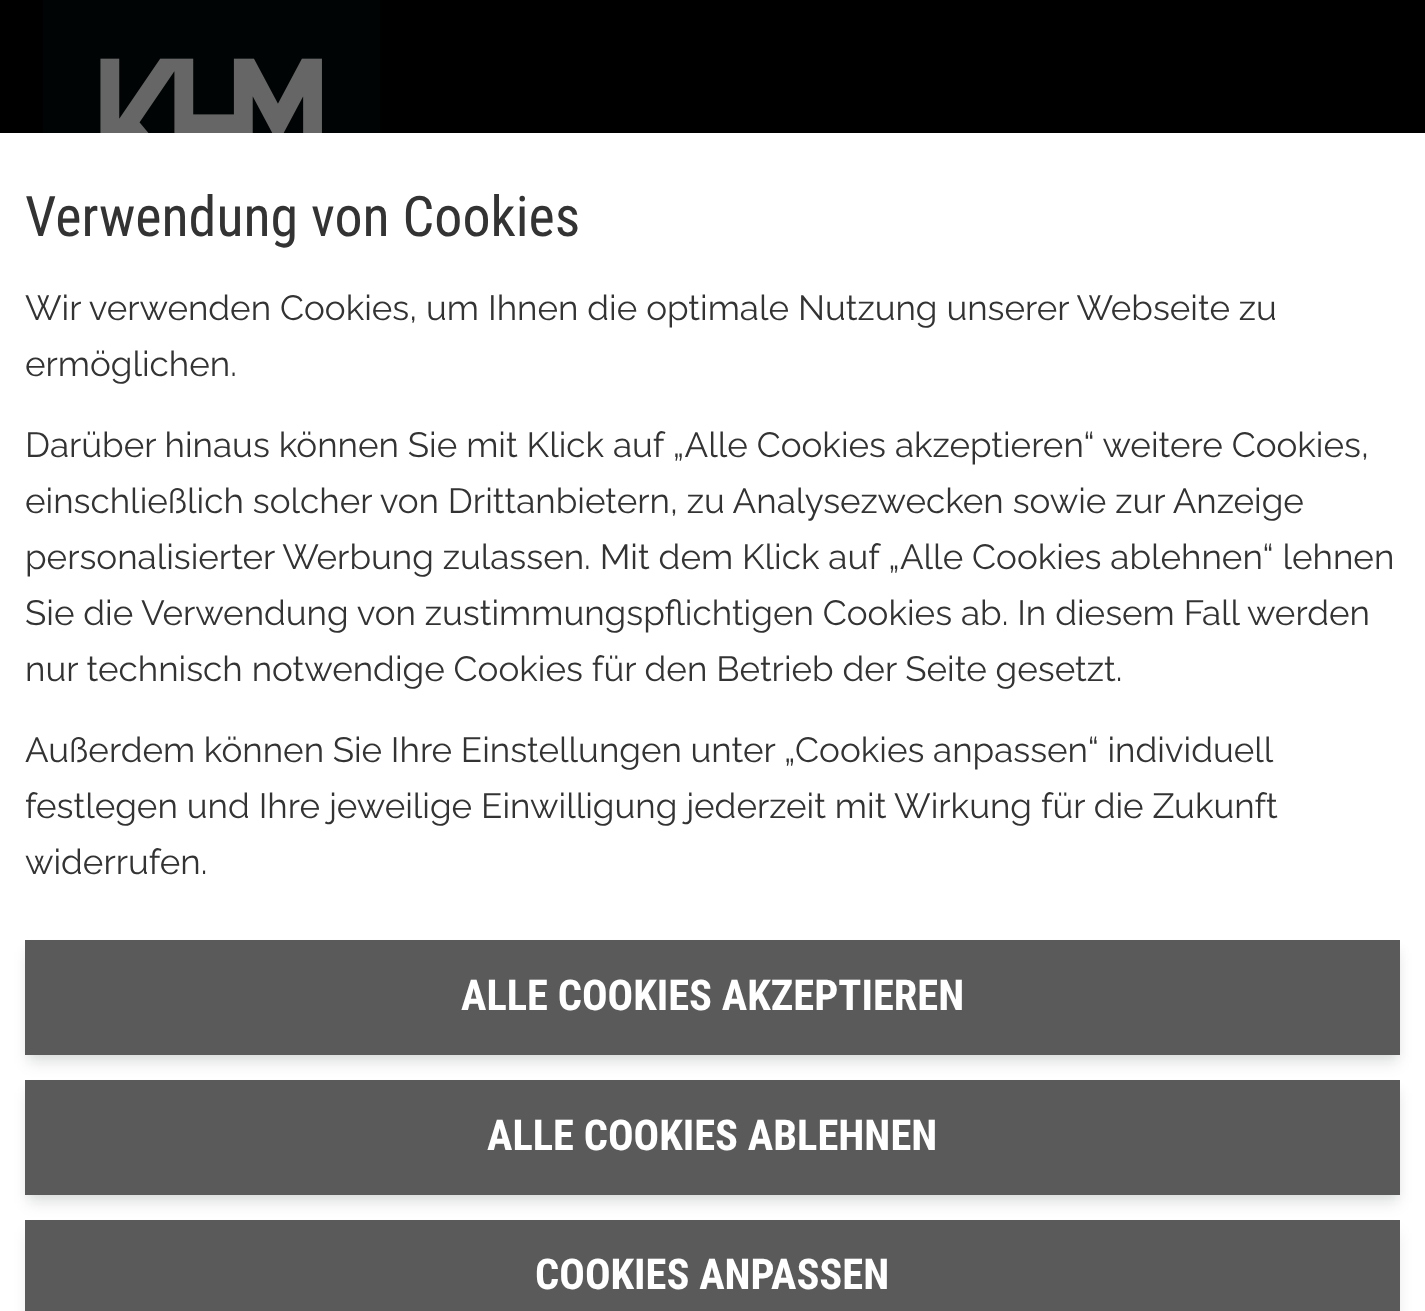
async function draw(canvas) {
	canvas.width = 1425;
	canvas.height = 1311;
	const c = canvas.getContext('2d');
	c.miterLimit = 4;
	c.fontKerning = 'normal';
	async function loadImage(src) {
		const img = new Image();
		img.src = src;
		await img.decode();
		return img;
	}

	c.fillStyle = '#000';
	c.fillRect(0, 0, 1425, 1311);
	c.drawImage(await loadImage('img1.png'), 43, 0, 337, 133);
	c.fillStyle = '#fff';
	c.fillRect(0, 133, 1425, 1178);
	c.font = '56px Roboto Condensed';
	c.fillStyle = '#333';
	c.fillText('Verwendung von Cookies', 25, 236);
	c.font = '35px Raleway';
	for (const [text, x, y] of [
		['Wir verwenden Cookies, um Ihnen die optimale Nutzung unserer Webseite zu', 25, 320],
		['ermöglichen.', 25, 376],
		['Darüber hinaus können Sie mit Klick auf „Alle Cookies akzeptieren“ weitere Cookies,', 25, 457],
		['einschließlich solcher von Drittanbietern, zu Analysezwecken sowie zur Anzeige', 25, 513],
		['personalisierter Werbung zulassen. Mit dem Klick auf „Alle Cookies ablehnen“ lehnen', 25, 569],
		['Sie die Verwendung von zustimmungspflichtigen Cookies ab. In diesem Fall werden', 25, 625],
		['nur technisch notwendige Cookies für den Betrieb der Seite gesetzt.', 25, 681],
	]) {
		c.fillText(text, x, y);
	}
	c.wordSpacing = '-0.25px';
	c.fillText('Außerdem können Sie Ihre Einstellungen unter „Cookies anpassen“ individuell', 25, 762);
	c.wordSpacing = '0px';
	c.fillText('festlegen und Ihre jeweilige Einwilligung jederzeit mit Wirkung für die Zukunft', 25, 818);
	c.fillText('widerrufen.', 25, 874);
	c.fillStyle = '#020a0a0f';
	c.filter = 'blur(5px)';
	c.beginPath();
	c.rect(28, 948, 1370, 110);
	c.fill();
	c.filter = 'none';
	c.fillStyle = '#020a0a1a';
	c.filter = 'blur(7.5px)';
	c.beginPath();
	c.rect(28, 953, 1370, 110);
	c.fill();
	c.filter = 'none';
	c.fillStyle = '#5a5a5a';
	c.fillRect(25, 940, 1375, 115);
	c.font = 'bold 42.5px Roboto Condensed';
	c.fillStyle = '#fff';
	c.fillText('ALLE COOKIES AKZEPTIEREN', 461, 1010);
	c.fillStyle = '#020a0a0f';
	c.filter = 'blur(5px)';
	c.beginPath();
	c.rect(28, 1088, 1370, 110);
	c.fill();
	c.filter = 'none';
	c.fillStyle = '#020a0a1a';
	c.filter = 'blur(7.5px)';
	c.beginPath();
	c.rect(28, 1093, 1370, 110);
	c.fill();
	c.filter = 'none';
	c.fillStyle = '#5a5a5a';
	c.fillRect(25, 1080, 1375, 115);
	c.fillStyle = '#fff';
	c.fillText('ALLE COOKIES ABLEHNEN', 487, 1150);
	c.fillStyle = '#020a0a1a';
	c.filter = 'blur(7.5px)';
	c.beginPath();
	c.rect(28, 1233, 1370, 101);
	c.fill();
	c.filter = 'none';
	c.fillStyle = '#5a5a5a';
	c.fillRect(25, 1220, 1375, 91);
	c.fillStyle = '#fff';
	c.fillText('COOKIES ANPASSEN', 535, 1289);
}

draw(document.querySelector('canvas'));
